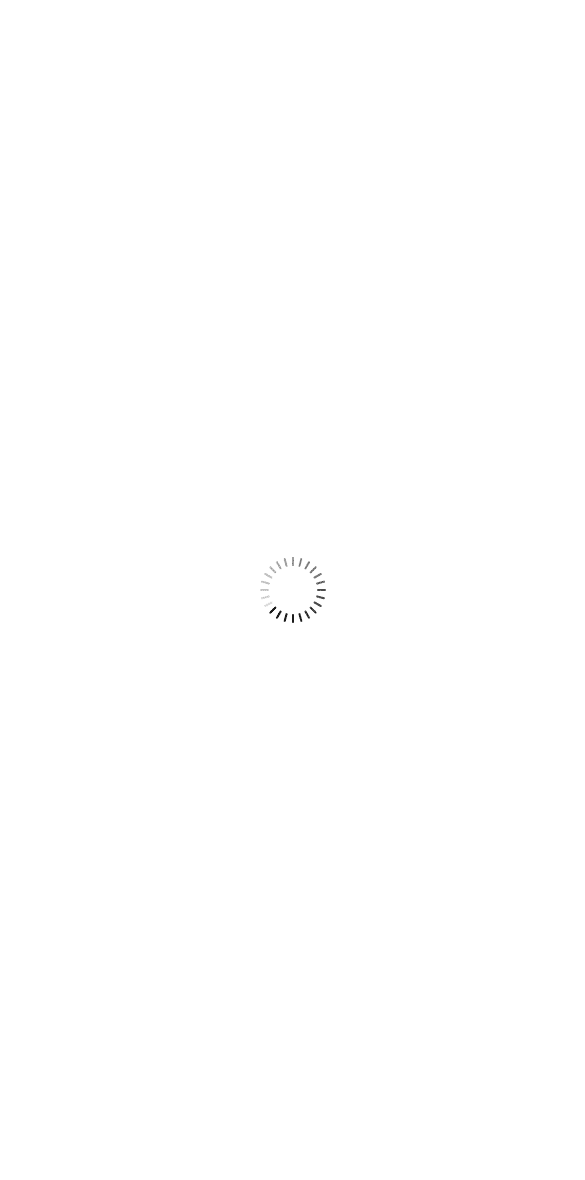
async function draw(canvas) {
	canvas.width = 585;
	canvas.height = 1180;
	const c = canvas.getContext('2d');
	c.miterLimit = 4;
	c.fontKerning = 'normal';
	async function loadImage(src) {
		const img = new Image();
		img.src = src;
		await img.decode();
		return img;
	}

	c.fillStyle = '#fff';
	c.fillRect(0, 0, 585, 1180);
	c.drawImage(await loadImage('img1.png'), 260, 557, 66, 66);
}

draw(document.querySelector('canvas'));
